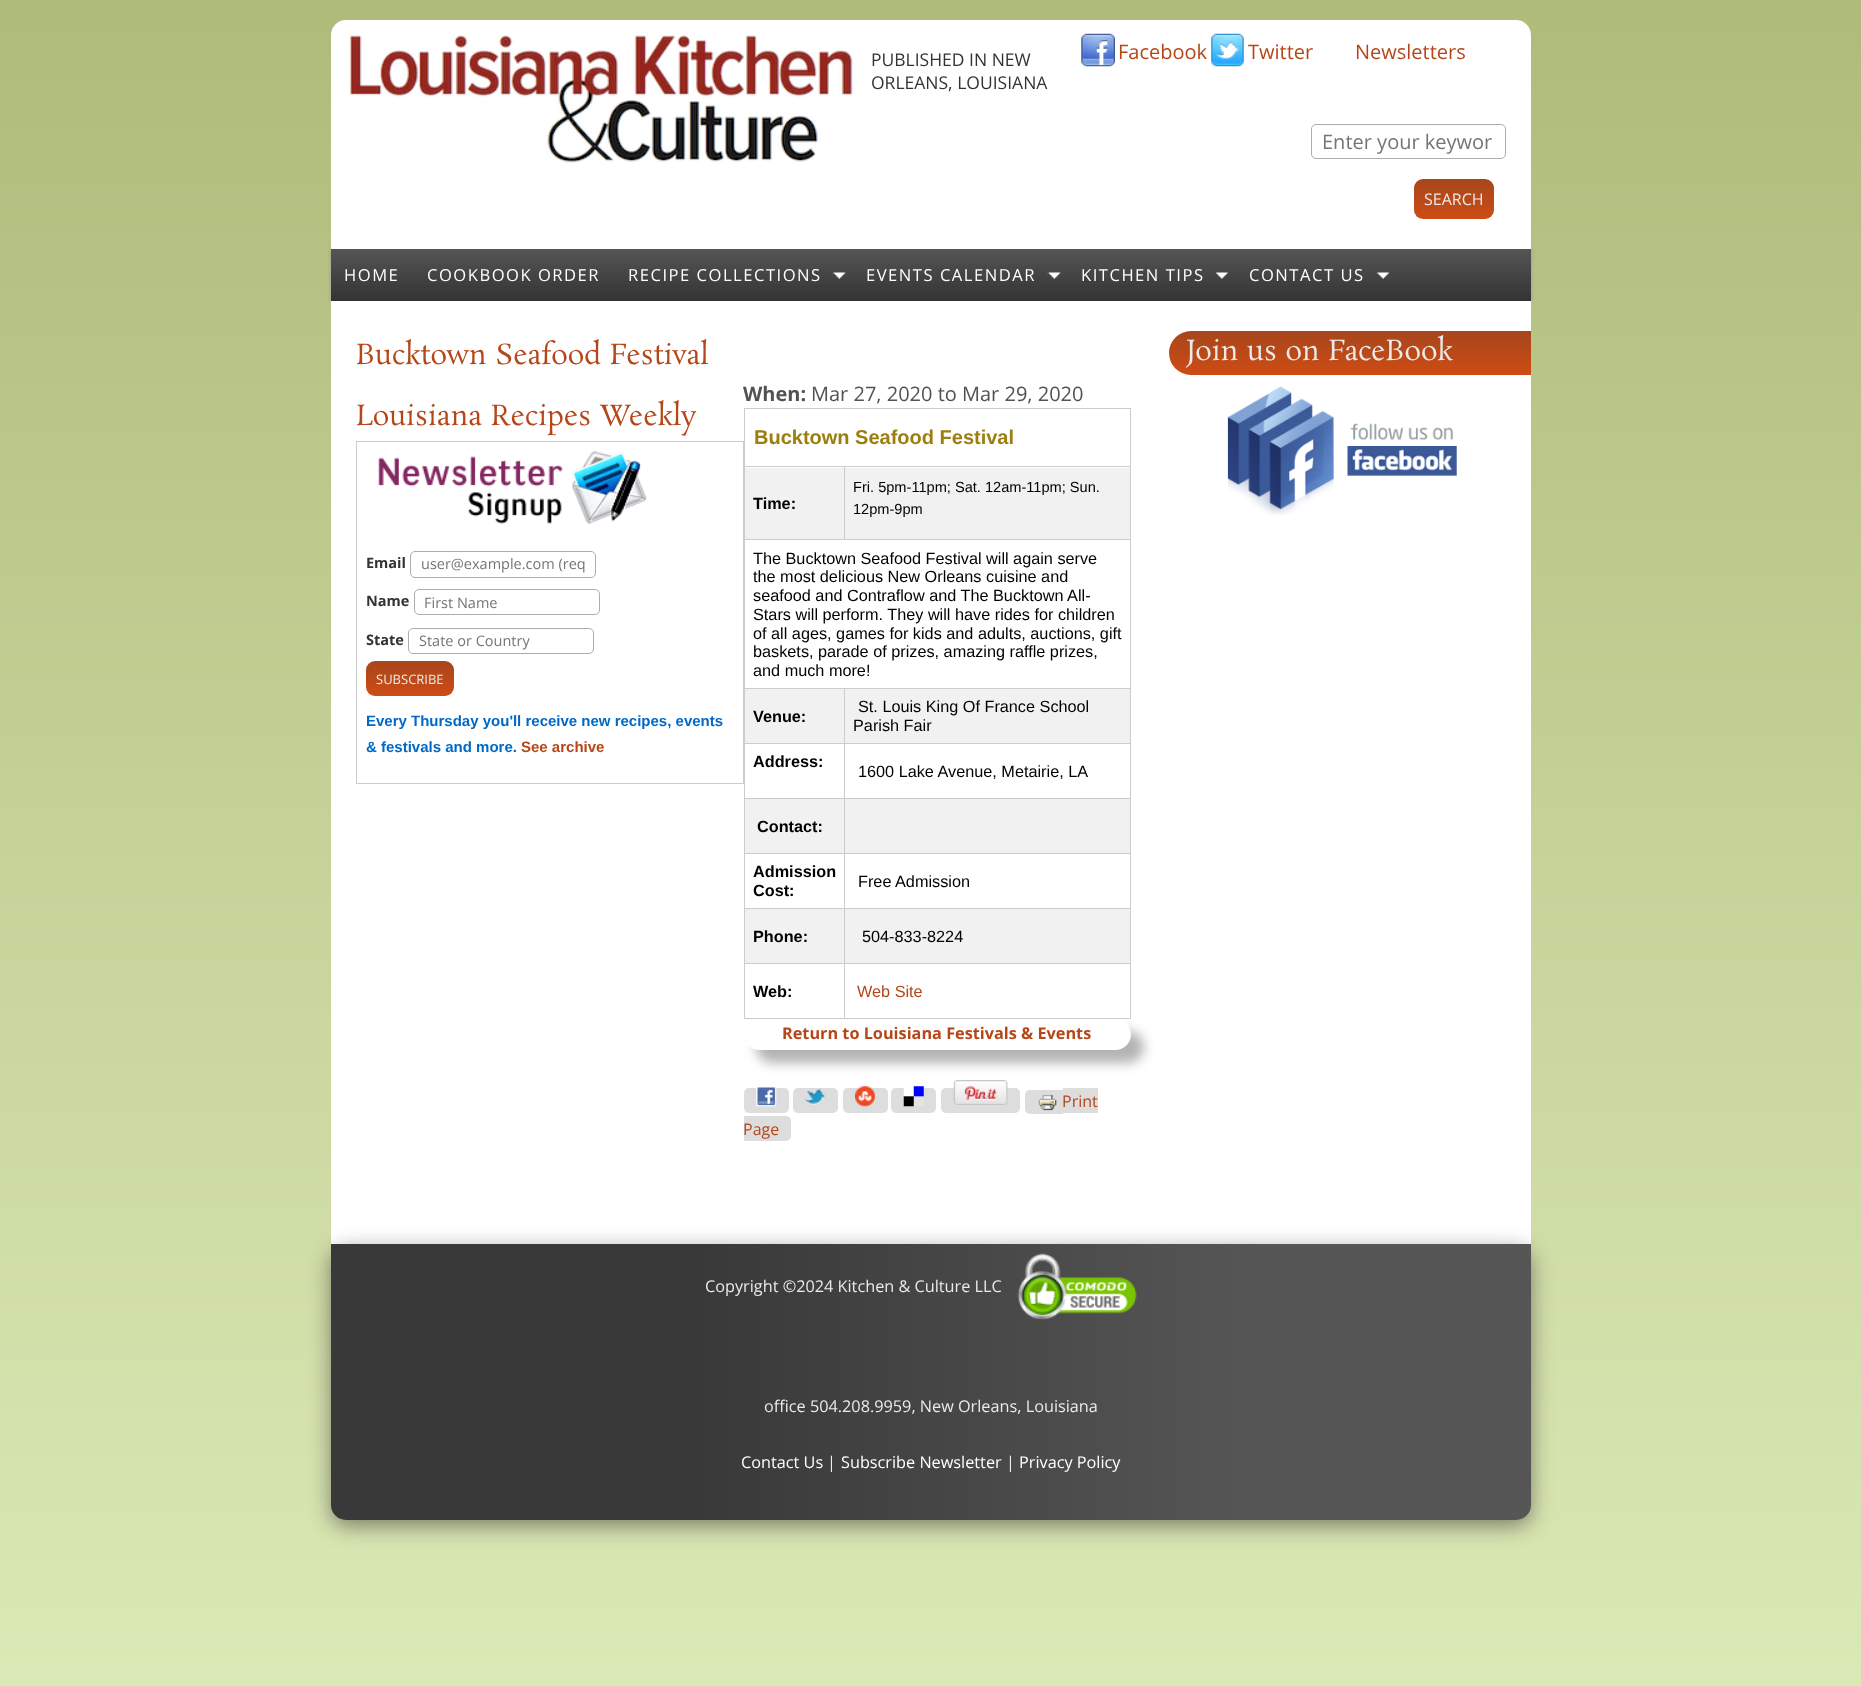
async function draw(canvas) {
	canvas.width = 1861;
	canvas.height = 1686;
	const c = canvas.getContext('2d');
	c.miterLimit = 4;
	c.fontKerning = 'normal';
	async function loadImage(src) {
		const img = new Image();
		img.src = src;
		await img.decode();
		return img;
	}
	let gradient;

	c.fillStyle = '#fff';
	c.fillRect(0, 0, 1861, 1686);
	gradient = c.createLinearGradient(931, 0, 931, 1686);
	gradient.addColorStop(0, '#afbb7a');
	gradient.addColorStop(1, '#dbe9b6');
	c.fillStyle = gradient;
	c.fillRect(0, 0, 1861, 1686);
	c.fillStyle = '#999';
	c.filter = 'blur(2px)';
	c.beginPath();
	c.rect(331, 249, 1200, 52);
	c.fill();
	c.filter = 'none';
	c.fillStyle = '#fff';
	c.beginPath();
	c.roundRect(331, 20, 1200, 229, [15, 15, 0, 0]);
	c.fill();
	c.drawImage(await loadImage('img1.png'), 349, 35, 504, 128);
	c.font = '17.5px Open Sans';
	c.fillStyle = '#333';
	c.fillText('PUBLISHED IN NEW', 871, 66);
	c.fillText('ORLEANS, LOUISIANA', 871, 89);
	c.drawImage(await loadImage('img2.png'), 1081, 33, 34, 34);
	c.font = '20px Open Sans';
	c.fillStyle = '#b54617';
	c.fillText('Facebook', 1118, 59);
	c.drawImage(await loadImage('img3.png'), 1211, 33, 33, 34);
	c.fillText('Twitter', 1248, 59);
	c.fillText('Newsletters', 1355, 59);
	c.beginPath();
	c.roundRect(1311.5, 124.5, 194, 34, 4.5);
	c.strokeStyle = '#acacac';
	c.stroke();
	c.fillStyle = '#757575';
	c.fillText('Enter your keywor', 1322, 149);
	gradient = c.createLinearGradient(1454, 219, 1454, 179);
	gradient.addColorStop(0, '#ce4c14');
	gradient.addColorStop(1, '#a7461c');
	c.fillStyle = gradient;
	c.beginPath();
	c.roundRect(1414, 179, 80, 40, 9);
	c.fill();
	c.font = '16px Open Sans';
	c.fillStyle = '#eaeaea';
	c.fillText('SEARCH', 1424, 205);
	gradient = c.createLinearGradient(931, 249, 931, 354);
	gradient.addColorStop(0, '#555');
	gradient.addColorStop(0.5, '#333');
	gradient.addColorStop(0.5, '#555');
	gradient.addColorStop(1, '#333');
	c.fillStyle = gradient;
	c.fillRect(331, 249, 1200, 52);
	c.letterSpacing = '1.5px';
	c.font = '16.6px Open Sans';
	c.fillStyle = '#fff';
	for (const [text, x, y] of [
		['HOME', 344, 281],
		['COOKBOOK ORDER', 427, 281],
		['RECIPE COLLECTIONS', 628, 281],
	]) {
		c.fillText(text, x, y);
	}
	c.drawImage(await loadImage('img4.png'), 832, 272, 15, 7);
	c.fillText('EVENTS CALENDAR', 866, 281);
	c.drawImage(await loadImage('img4.png'), 1047, 272, 15, 7);
	c.fillText('KITCHEN TIPS', 1081, 281);
	c.drawImage(await loadImage('img5.png'), 1215, 272, 14, 7);
	c.fillText('CONTACT US', 1249, 281);
	c.drawImage(await loadImage('img6.png'), 1376, 272, 14, 7);
	c.fillRect(331, 301, 1200, 943);
	c.letterSpacing = '0px';
	c.font = '28px Rosarivo';
	c.fillStyle = '#b54617';
	c.fillText('Bucktown Seafood Festival', 356, 364);
	c.fillText('Louisiana Recipes Weekly', 356, 425);
	for (const [x, y, w, h, color] of [
		[356, 441, 388, 1, '#ccc'],
		[743, 441, 1, 343, '#ccc'],
		[356, 783, 388, 1, '#ccc'],
		[356, 441, 1, 343, '#ccc'],
	]) {
		c.fillStyle = color;
		c.fillRect(x, y, w, h);
	}
	c.drawImage(await loadImage('img7.png'), 378, 451, 269, 73);
	c.font = 'bold 14.5px Open Sans';
	c.fillStyle = '#333';
	c.fillText('Email', 366, 568);
	c.beginPath();
	c.roundRect(410.5, 551.5, 185, 26, 4.5);
	c.stroke();
	c.save();
	c.beginPath();
	c.rect(421, 555, 164, 19);
	c.clip();
	c.font = '14.5px Open Sans';
	c.fillStyle = '#757575';
	c.fillText('user@example.com (req', 421, 569);
	c.restore();
	c.fillText('Name', 366, 606);
	c.beginPath();
	c.roundRect(414.5, 589.5, 185, 25, 4.5);
	c.stroke();
	c.font = '14.5px Open Sans';
	c.fillStyle = '#757575';
	c.fillText('First Name', 424, 608);
	c.font = 'bold 14.5px Open Sans';
	c.fillStyle = '#333';
	c.fillText('State', 366, 645);
	c.beginPath();
	c.roundRect(408.5, 628.5, 185, 25, 4.5);
	c.stroke();
	c.font = '14.5px Open Sans';
	c.fillStyle = '#757575';
	c.fillText('State or Country', 419, 646);
	gradient = c.createLinearGradient(410, 696, 410, 661);
	gradient.addColorStop(0, '#ce4c14');
	gradient.addColorStop(1, '#a7461c');
	c.fillStyle = gradient;
	c.beginPath();
	c.roundRect(366, 661, 88, 35, 9);
	c.fill();
	c.font = '13px Open Sans';
	c.fillStyle = '#eaeaea';
	c.fillText('SUBSCRIBE', 376, 684);
	c.font = 'bold 15px Liberation Sans';
	c.fillStyle = '#0069c8';
	c.fillText('Every Thursday you\'ll receive new recipes, events', 366, 726);
	c.fillText('& festivals and more.', 366, 752);
	c.fillStyle = '#b54617';
	c.fillText('See archive', 521, 752);
	c.font = 'bold 20px Open Sans';
	c.fillStyle = '#525252';
	c.fillText('When:', 743, 401);
	c.font = '20px Open Sans';
	c.fillText('Mar 27, 2020 to Mar 29, 2020', 811, 401);
	c.fillStyle = '#ccc';
	c.fillRect(744, 408, 387, 1);
	c.font = 'bold 20px Liberation Sans';
	c.fillStyle = '#9c7e0e';
	c.fillText('Bucktown Seafood Festival', 754, 444);
	for (const [x, y, w, h, color] of [
		[745, 468, 99, 71, '#f1f1f1'],
		[844, 466, 287, 1, '#ccc'],
		[744, 539, 387, 1, '#ccc'],
		[844, 466, 1, 74, '#ccc'],
		[744, 466, 101, 1, '#ccc'],
		[844, 688, 287, 1, '#ccc'],
		[844, 743, 287, 1, '#ccc'],
		[844, 798, 287, 1, '#ccc'],
		[844, 853, 287, 1, '#ccc'],
		[844, 908, 287, 1, '#ccc'],
		[844, 963, 287, 1, '#ccc'],
		[1130, 963, 1, 56, '#ccc'],
		[844, 1018, 287, 1, '#ccc'],
		[844, 963, 1, 56, '#ccc'],
		[744, 963, 101, 1, '#ccc'],
		[844, 908, 1, 56, '#ccc'],
		[744, 908, 101, 1, '#ccc'],
		[844, 853, 1, 56, '#ccc'],
		[744, 853, 101, 1, '#ccc'],
		[844, 798, 1, 56, '#ccc'],
		[744, 798, 101, 1, '#ccc'],
		[844, 743, 1, 56, '#ccc'],
		[744, 743, 101, 1, '#ccc'],
		[844, 688, 1, 56, '#ccc'],
		[744, 688, 101, 1, '#ccc'],
		[744, 1018, 101, 1, '#ccc'],
		[744, 963, 1, 56, '#ccc'],
		[744, 908, 1, 56, '#ccc'],
		[744, 853, 1, 56, '#ccc'],
		[744, 798, 1, 56, '#ccc'],
		[744, 743, 1, 56, '#ccc'],
		[744, 688, 1, 56, '#ccc'],
		[744, 539, 1, 150, '#ccc'],
		[744, 408, 1, 132, '#ccc'],
	]) {
		c.fillStyle = color;
		c.fillRect(x, y, w, h);
	}
	c.font = 'bold 16.25px Liberation Sans';
	c.fillStyle = '#000';
	c.fillText('Time:', 753, 509);
	for (const [x, y, w, h, color] of [
		[845, 468, 285, 71, '#f1f1f1'],
		[1130, 908, 1, 56, '#ccc'],
		[1130, 853, 1, 56, '#ccc'],
		[1130, 798, 1, 56, '#ccc'],
		[1130, 743, 1, 56, '#ccc'],
		[1130, 688, 1, 56, '#ccc'],
		[1130, 539, 1, 150, '#ccc'],
		[1130, 408, 1, 132, '#ccc'],
	]) {
		c.fillStyle = color;
		c.fillRect(x, y, w, h);
	}
	c.font = '14.6px Liberation Sans';
	c.fillStyle = '#000';
	c.fillText('Fri. 5pm-11pm; Sat. 12am-11pm; Sun.', 853, 492);
	c.fillText('12pm-9pm', 853, 514);
	c.font = '16.25px Liberation Sans';
	for (const [text, x, y] of [
		['The Bucktown Seafood Festival will again serve', 753, 564],
		['the most delicious New Orleans cuisine and', 753, 582],
		['seafood and Contraflow and The Bucktown All-', 753, 601],
		['Stars will perform. They will have rides for children', 753, 620],
		['of all ages, games for kids and adults, auctions, gift', 753, 639],
		['baskets, parade of prizes, amazing raffle prizes,', 753, 657],
		['and much more!', 753, 676],
	]) {
		c.fillText(text, x, y);
	}
	c.fillStyle = '#f1f1f1';
	c.fillRect(745, 689, 99, 54);
	c.font = 'bold 16.25px Liberation Sans';
	c.fillStyle = '#000';
	c.fillText('Venue:', 753, 722);
	c.fillStyle = '#f1f1f1';
	c.fillRect(845, 689, 285, 54);
	c.font = '16.25px Liberation Sans';
	c.fillStyle = '#000';
	c.fillText('St. Louis King Of France School', 858, 712);
	c.fillText('Parish Fair', 853, 731);
	c.font = 'bold 16.25px Liberation Sans';
	c.fillText('Address:', 753, 767);
	c.font = '16.25px Liberation Sans';
	c.fillText('1600 Lake Avenue, Metairie, LA', 858, 777);
	c.fillStyle = '#f1f1f1';
	c.fillRect(745, 799, 99, 54);
	c.font = 'bold 16.25px Liberation Sans';
	c.fillStyle = '#000';
	c.fillText('Contact:', 757, 832);
	c.fillStyle = '#f1f1f1';
	c.fillRect(845, 799, 285, 54);
	c.fillStyle = '#000';
	c.fillText('Admission', 753, 877);
	c.fillText('Cost:', 753, 896);
	c.font = '16.25px Liberation Sans';
	c.fillText('Free Admission', 858, 887);
	c.fillStyle = '#f1f1f1';
	c.fillRect(745, 909, 99, 54);
	c.font = 'bold 16.25px Liberation Sans';
	c.fillStyle = '#000';
	c.fillText('Phone:', 753, 942);
	c.fillStyle = '#f1f1f1';
	c.fillRect(845, 909, 285, 54);
	c.font = '16.25px Liberation Sans';
	c.fillStyle = '#000';
	c.fillText('504-833-8224', 862, 942);
	c.font = 'bold 16.25px Liberation Sans';
	c.fillText('Web:', 753, 997);
	c.font = '16.25px Liberation Sans';
	c.fillStyle = '#b54617';
	c.fillText('Web Site', 857, 997);
	c.save();
	c.beginPath();
	c.moveTo(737, 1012);
	c.lineTo(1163, 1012);
	c.lineTo(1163, 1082);
	c.lineTo(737, 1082);
	c.closePath();
	c.moveTo(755, 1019);
	c.lineTo(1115.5, 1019);
	c.bezierCurveTo(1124, 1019, 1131, 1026, 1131, 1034.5);
	c.bezierCurveTo(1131, 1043, 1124, 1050, 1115.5, 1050);
	c.lineTo(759.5, 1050);
	c.bezierCurveTo(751, 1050, 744, 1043, 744, 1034.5);
	c.lineTo(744, 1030);
	c.bezierCurveTo(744, 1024, 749, 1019, 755, 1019);
	c.closePath();
	c.clip('evenodd');
	c.fillStyle = '#b3b3b3';
	c.filter = 'blur(6px)';
	c.beginPath();
	c.roundRect(756, 1031, 388, 32, 16);
	c.fill();
	c.filter = 'none';
	c.restore();
	c.font = 'bold 16.25px Open Sans';
	c.fillText('Return to Louisiana Festivals & Events', 782, 1039);
	c.fillStyle = '#ddd';
	c.beginPath();
	c.roundRect(744, 1088, 45, 25, 5);
	c.fill();
	c.drawImage(await loadImage('img8.png'), 756, 1087, 21, 20);
	c.beginPath();
	c.roundRect(793, 1088, 45, 25, 5);
	c.fill();
	c.drawImage(await loadImage('img9.png'), 805, 1088, 20, 17);
	c.beginPath();
	c.roundRect(843, 1088, 45, 25, 5);
	c.fill();
	c.drawImage(await loadImage('img10.png'), 855, 1086, 20, 21);
	c.beginPath();
	c.roundRect(891, 1088, 45, 25, 5);
	c.fill();
	c.drawImage(await loadImage('img11.png'), 903, 1086, 21, 21);
	c.beginPath();
	c.roundRect(941, 1088, 79, 25, 5);
	c.fill();
	c.drawImage(await loadImage('img12.png'), 953, 1080, 55, 25);
	c.beginPath();
	c.roundRect(1025, 1090, 38, 24, [5, 0, 0, 5]);
	c.fill();
	c.drawImage(await loadImage('img13.png'), 1038, 1094, 19, 17);
	c.fillRect(1063, 1088, 35, 25);
	c.font = '16px Open Sans';
	c.fillStyle = '#b54617';
	c.fillText('Print', 1062, 1107);
	c.fillStyle = '#ddd';
	c.beginPath();
	c.roundRect(744, 1116, 47, 25, [0, 5, 5, 0]);
	c.fill();
	c.fillStyle = '#b54617';
	c.fillText('Page', 743, 1135);
	gradient = c.createLinearGradient(1350, 375, 1350, 331);
	gradient.addColorStop(0, '#ce4c14');
	gradient.addColorStop(1, '#a7461c');
	c.fillStyle = gradient;
	c.beginPath();
	c.roundRect(1169, 331, 362, 44, [22, 0, 0, 22]);
	c.fill();
	c.font = '28px Rosarivo';
	c.fillStyle = '#eaeaea';
	c.fillText('Join us on FaceBook', 1186, 360);
	c.drawImage(await loadImage('img14.png'), 1227, 386, 230, 129);
	c.fillStyle = '#3232328f';
	c.filter = 'blur(10.5px)';
	c.beginPath();
	c.roundRect(331, 1250, 1200, 276, 15);
	c.fill();
	c.filter = 'none';
	gradient = c.createLinearGradient(331, 1382, 1531, 1382);
	gradient.addColorStop(0.31, '#393939');
	gradient.addColorStop(0.77, '#565656');
	c.fillStyle = gradient;
	c.beginPath();
	c.roundRect(331, 1244, 1200, 276, [0, 0, 15, 15]);
	c.fill();
	c.font = '16.25px Open Sans';
	c.fillStyle = '#eaeaea';
	c.fillText('Copyright ©2024 Kitchen & Culture LLC', 705, 1292);
	c.drawImage(await loadImage('img15.png'), 1017, 1253, 120, 67);
	c.fillText('office 504.208.9959, New Orleans, Louisiana', 764, 1412);
	c.fillStyle = '#fff';
	c.fillText('Contact Us', 741, 1468);
	c.fillStyle = '#eaeaea';
	c.fillText('|', 827, 1468);
	c.fillStyle = '#fff';
	c.fillText('Subscribe Newsletter', 841, 1468);
	c.fillStyle = '#eaeaea';
	c.fillText('|', 1006, 1468);
	c.fillStyle = '#fff';
	c.fillText('Privacy Policy', 1019, 1468);
}

draw(document.querySelector('canvas'));
